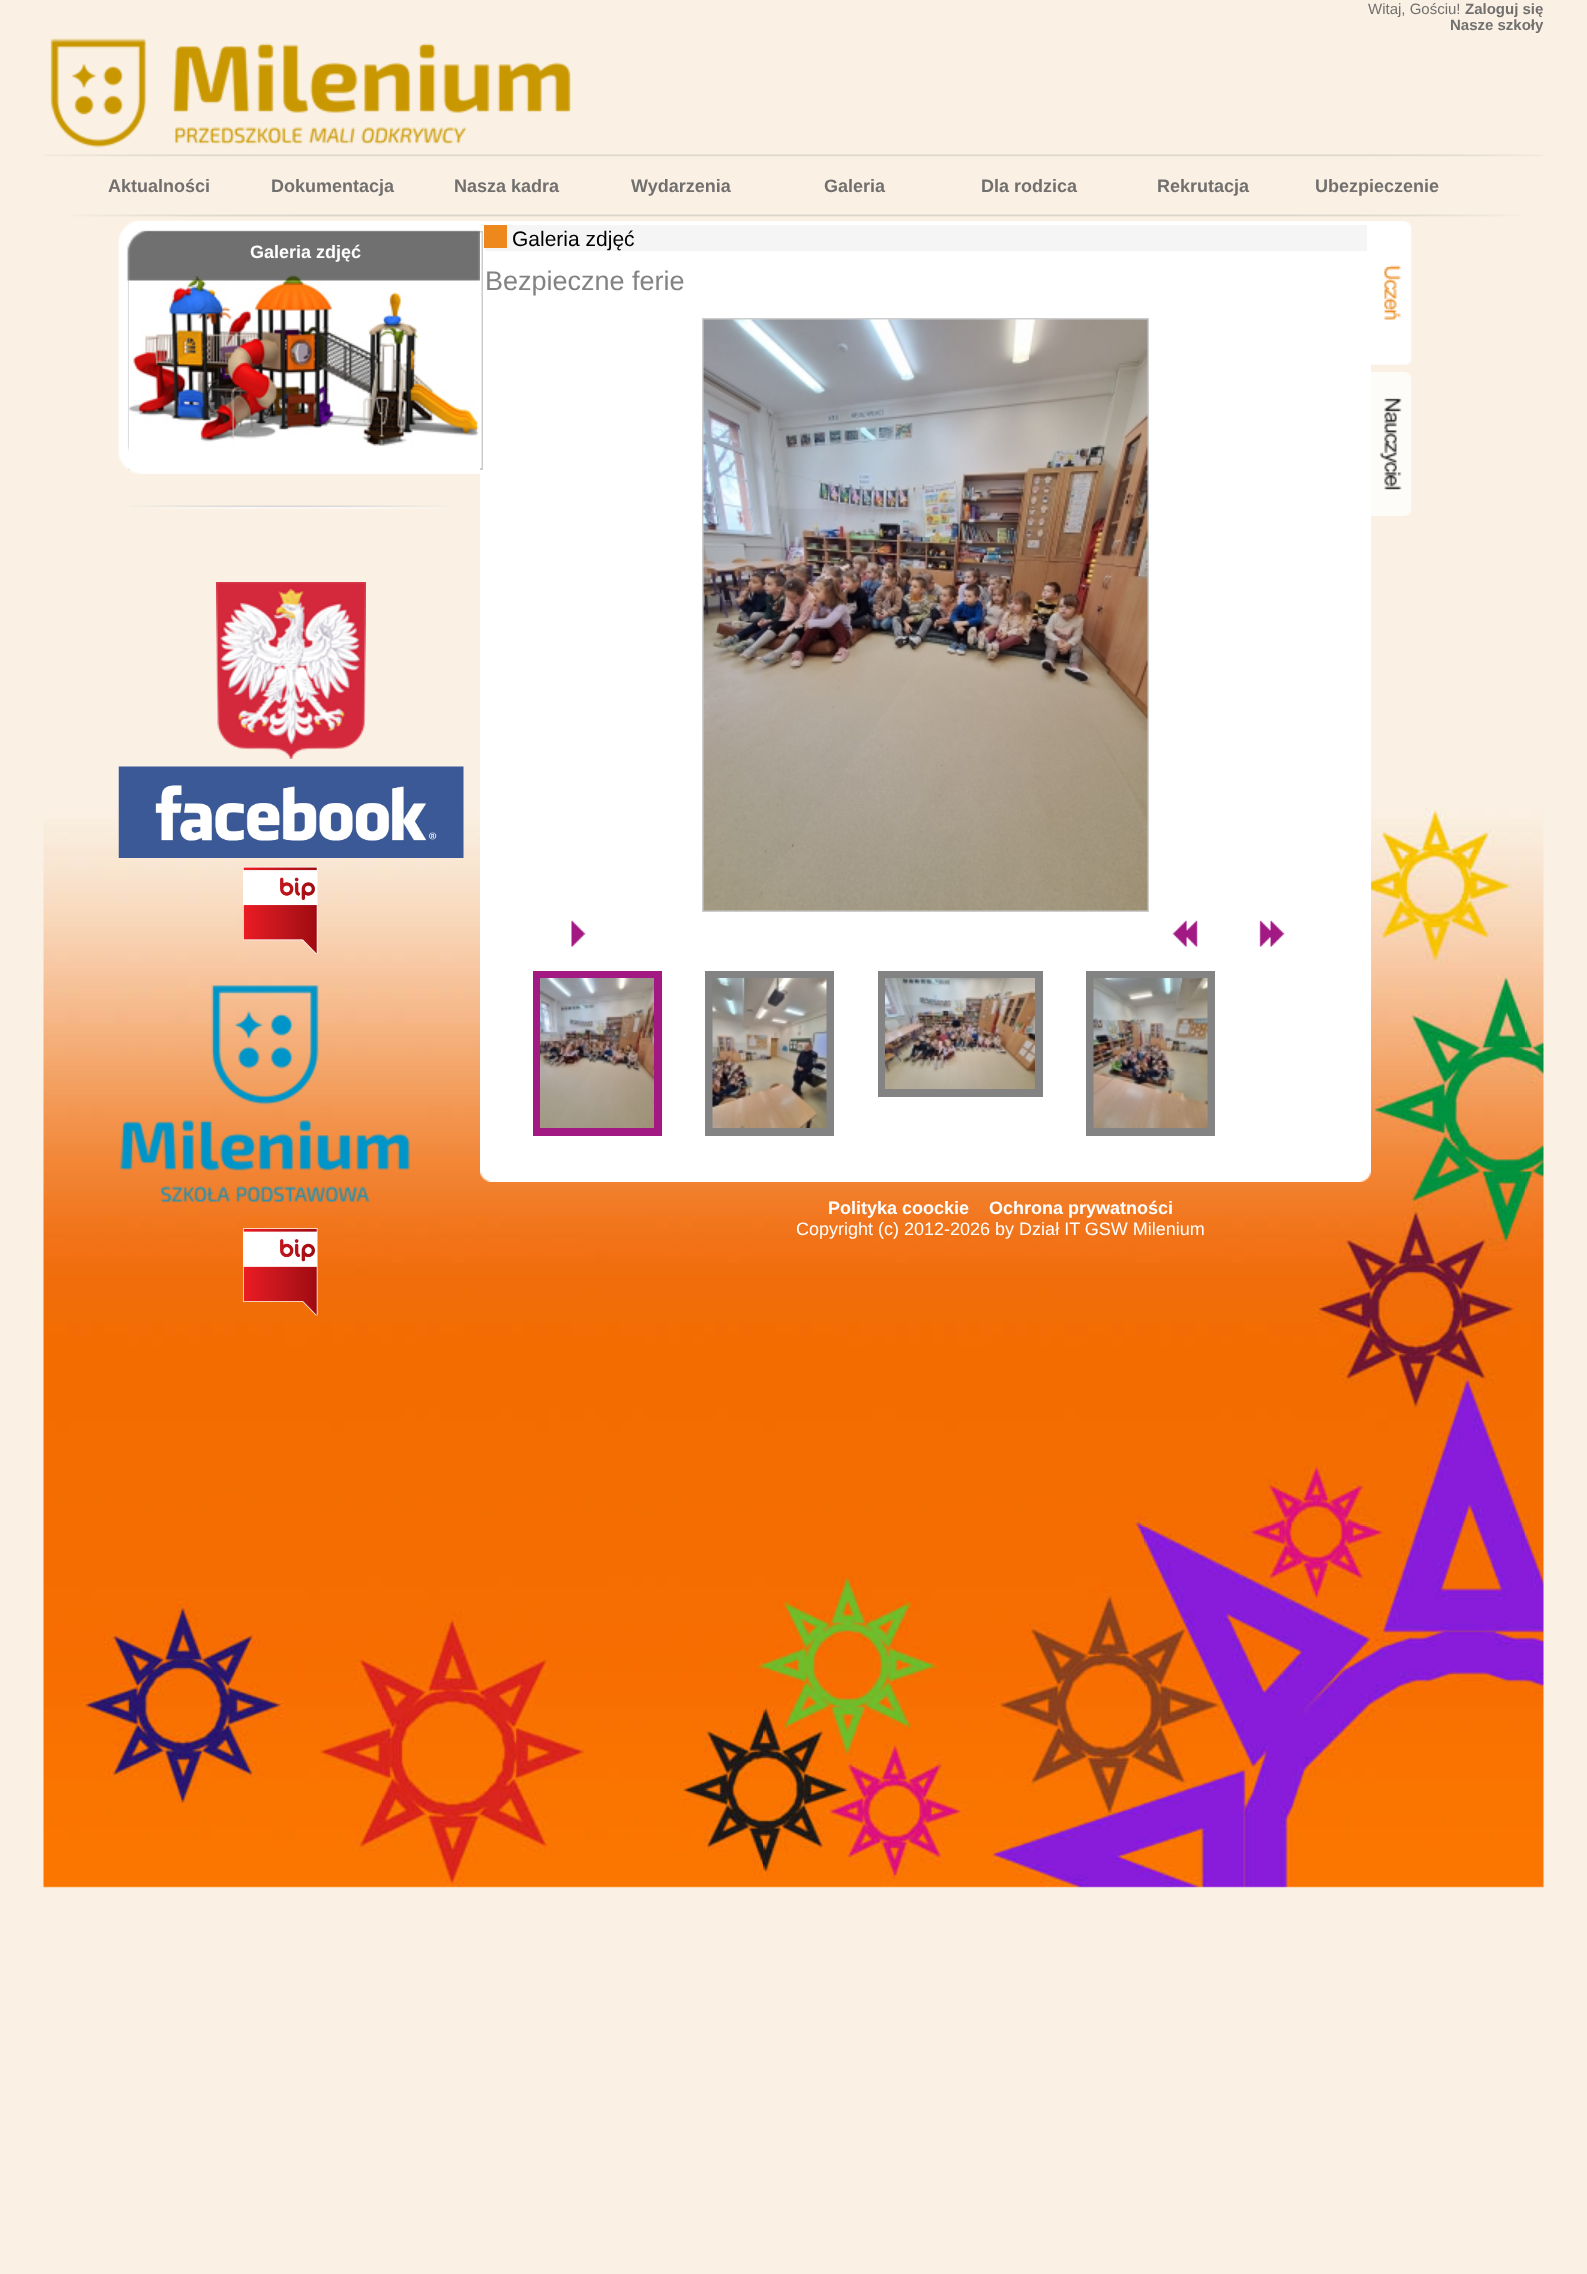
async function draw(canvas) {
	canvas.width = 1587;
	canvas.height = 2274;
	const c = canvas.getContext('2d');
	c.miterLimit = 4;
	c.fontKerning = 'normal';
	async function loadImage(src) {
		const img = new Image();
		img.src = src;
		await img.decode();
		return img;
	}

	c.fillStyle = '#faf1e4';
	c.fillRect(0, 0, 1587, 2274);
	c.drawImage(await loadImage('img1.png'), 43, 807, 1501, 1081);
	c.font = '15px Liberation Sans';
	c.fillStyle = '#72706f';
	c.fillText('Witaj, Gościu!', 1368, 14);
	c.font = 'bold 15px Liberation Sans';
	c.fillText('Zaloguj się', 1465, 14);
	c.fillText('Nasze szkoły', 1450, 30);
	c.drawImage(await loadImage('img2.png'), 50, 38, 521, 110);
	c.drawImage(await loadImage('img3.png'), 44, 154, 1499, 3);
	c.font = 'bold 18px Liberation Sans';
	for (const [text, x, y] of [
		['Aktualności', 108, 192],
		['Dokumentacja', 271, 192],
		['Nasza kadra', 454, 192],
		['Wydarzenia', 631, 192],
		['Galeria', 824, 192],
		['Dla rodzica', 981, 192],
		['Rekrutacja', 1157, 192],
		['Ubezpieczenie', 1315, 192],
	]) {
		c.fillText(text, x, y);
	}
	c.drawImage(await loadImage('img4.png'), 71, 213, 1448, 4);
	c.fillStyle = '#fff';
	c.fillRect(480, 221, 891, 942);
	c.strokeStyle = '#ccc';
	c.lineWidth = 2;
	c.strokeRect(129, 232, 353, 237);
	c.drawImage(await loadImage('img5.png'), 129, 232, 353, 236);
	c.drawImage(await loadImage('img6.png'), 118, 220, 362, 254);
	c.fillText('Galeria zdjęć', 250, 258);
	c.drawImage(await loadImage('img7.png'), 130, 505, 317, 4);
	c.drawImage(await loadImage('img8.png'), 216, 582, 150, 177);
	c.drawImage(await loadImage('img9.png'), 118, 766, 346, 92);
	c.drawImage(await loadImage('img10.png'), 243, 866, 75, 88);
	c.drawImage(await loadImage('img11.png'), 119, 985, 291, 217);
	c.drawImage(await loadImage('img12.png'), 243, 1228, 75, 88);
	c.fillStyle = '#f5f5f5';
	c.fillRect(485, 225, 882, 26);
	c.fillStyle = '#ed881c';
	c.fillRect(484, 225, 23, 23);
	c.font = '21px Liberation Sans';
	c.fillStyle = '#000';
	c.fillText('Galeria zdjęć', 512, 246);
	c.font = '27px Liberation Sans';
	c.fillStyle = '#838383';
	c.fillText('Bezpieczne ferie', 485, 290);
	c.strokeRect(703, 319, 445, 592);
	c.drawImage(await loadImage('img13.png'), 703, 319, 445, 592);
	c.drawImage(await loadImage('img14.png'), 571, 920, 15, 27);
	c.drawImage(await loadImage('img15.png'), 1172, 920, 26, 27);
	c.drawImage(await loadImage('img16.png'), 1259, 920, 26, 27);
	c.fillStyle = '#a21984';
	c.fillRect(533, 971, 129, 165);
	c.drawImage(await loadImage('img17.png'), 540, 978, 114, 150);
	c.fillStyle = '#838383';
	c.fillRect(705, 971, 129, 165);
	c.drawImage(await loadImage('img18.png'), 712, 978, 115, 150);
	c.fillRect(878, 971, 165, 126);
	c.drawImage(await loadImage('img19.png'), 885, 978, 150, 111);
	c.fillRect(1086, 971, 129, 165);
	c.drawImage(await loadImage('img20.png'), 1093, 978, 115, 150);
	c.drawImage(await loadImage('img21.png'), 480, 1163, 891, 19);
	c.font = 'bold 18px Liberation Sans';
	c.fillStyle = '#fff';
	c.fillText('Polityka coockie', 828, 1214);
	c.fillText('Ochrona prywatności', 989, 1214);
	c.font = '18px Liberation Sans';
	c.fillText('Copyright (c) 2012-2026 by Dział IT GSW Milenium', 796, 1235);
	c.drawImage(await loadImage('img22.png'), 1371, 221, 41, 144);
	c.drawImage(await loadImage('img23.png'), 1371, 372, 41, 144);
}

draw(document.querySelector('canvas'));
